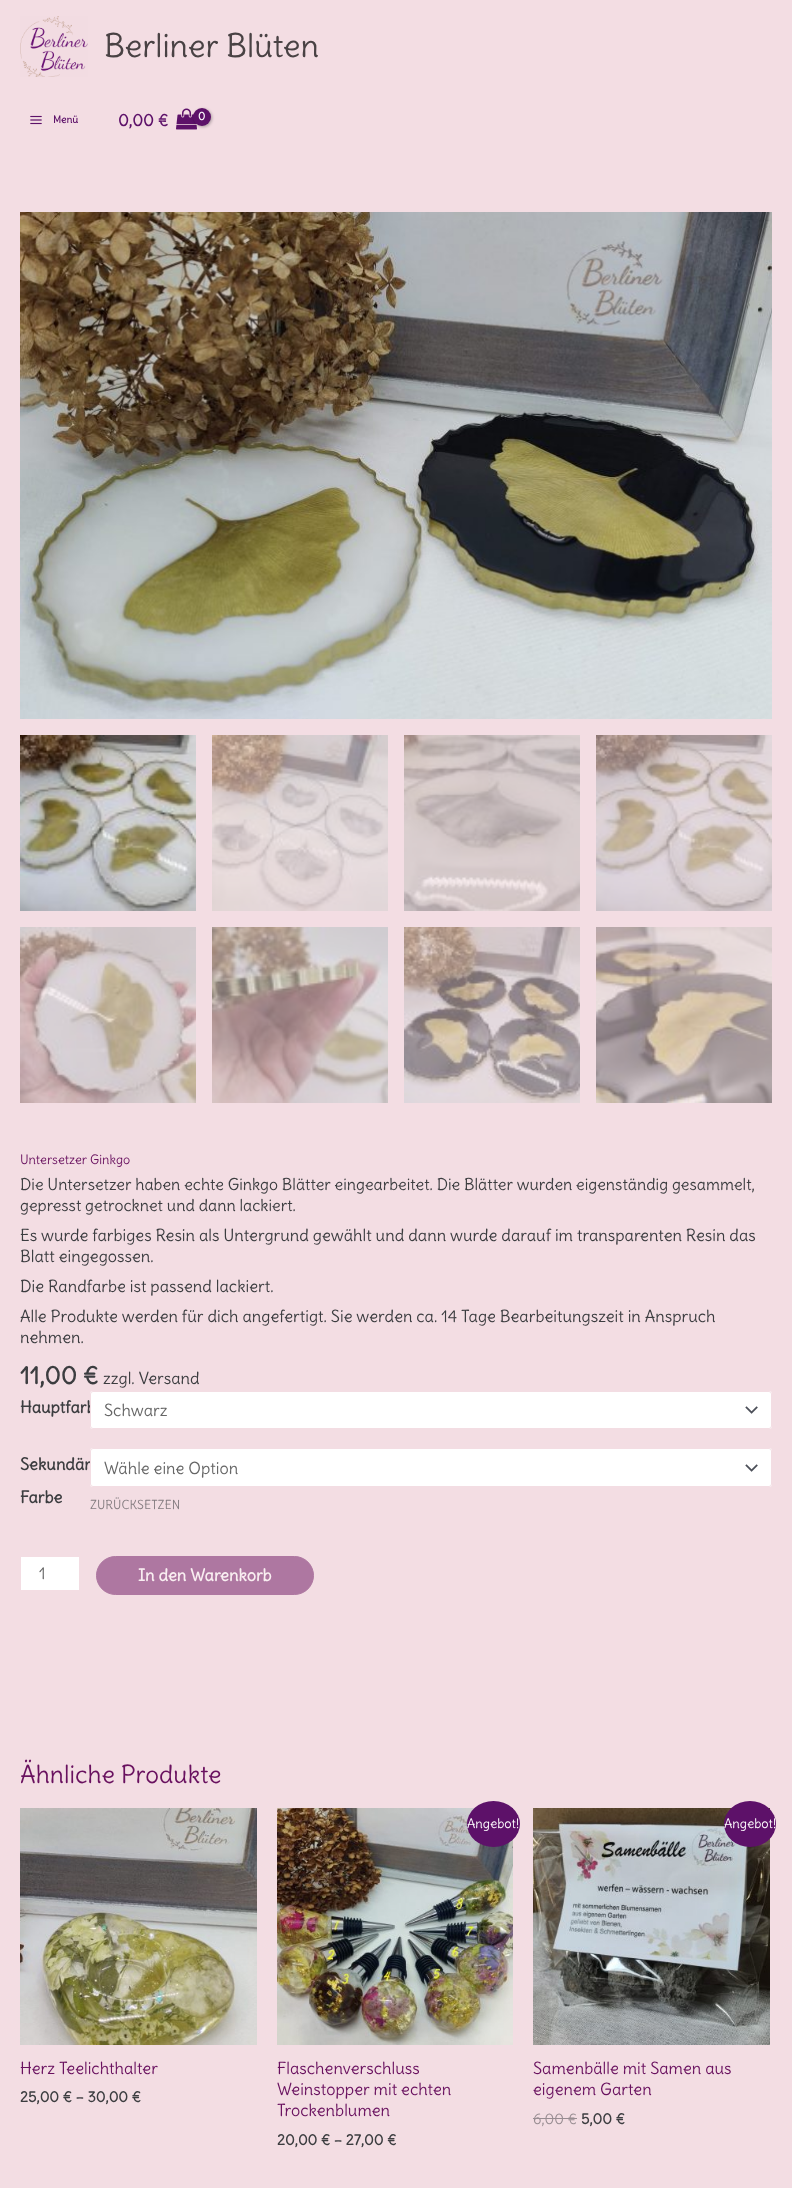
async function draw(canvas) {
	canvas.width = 792;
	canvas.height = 2188;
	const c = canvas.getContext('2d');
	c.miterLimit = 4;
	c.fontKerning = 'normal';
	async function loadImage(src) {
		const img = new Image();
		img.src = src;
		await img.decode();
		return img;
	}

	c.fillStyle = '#f3dde3';
	c.fillRect(0, 0, 792, 2188);
	c.drawImage(await loadImage('img1.png'), 20, 16, 68, 61);
	c.font = '32px Delius';
	c.fillStyle = '#494244';
	c.fillText('Berliner Blüten', 104, 57);
	c.drawImage(await loadImage('img2.png'), 30, 115, 12, 10);
	c.font = 'bold 10px Delius';
	c.fillStyle = '#5d1169';
	c.fillText('Menü', 53, 123);
	c.font = 'bold 16.4px Delius';
	c.fillText('0,00 €', 118, 126);
	c.drawImage(await loadImage('img3.png'), 176, 108, 21, 22);
	c.fillStyle = '#0000004d';
	c.filter = 'blur(1.5px)';
	c.beginPath();
	c.roundRect(194, 109, 18, 18, 9);
	c.fill();
	c.filter = 'none';
	c.fillStyle = '#5d1169';
	c.beginPath();
	c.arc(202, 117, 9, 0, 2 * Math.PI);
	c.fill();
	c.font = 'bold 11px Delius';
	c.fillStyle = '#fff';
	c.fillText('0', 198, 120);
	c.drawImage(await loadImage('img4.png'), 20, 212, 752, 507);
	c.drawImage(await loadImage('img5.png'), 20, 735, 176, 176);
	c.drawImage(await loadImage('img6.png'), 212, 735, 176, 176);
	c.drawImage(await loadImage('img7.png'), 404, 735, 176, 176);
	c.drawImage(await loadImage('img8.png'), 596, 735, 176, 176);
	c.drawImage(await loadImage('img9.png'), 20, 927, 176, 176);
	c.drawImage(await loadImage('img10.png'), 212, 927, 176, 176);
	c.drawImage(await loadImage('img11.png'), 404, 927, 176, 176);
	c.drawImage(await loadImage('img12.png'), 596, 927, 176, 176);
	c.font = '12.75px Delius';
	c.fillStyle = '#69115f';
	c.fillText('Untersetzer Ginkgo', 20, 1164);
	c.font = '16px Delius';
	c.fillStyle = '#3c3d40';
	c.fillText('Die Untersetzer haben echte Ginkgo Blätter eingearbeitet. Die Blätter wurden eigenständig gesammelt,', 20, 1190);
	c.fillText('gepresst getrocknet und dann lackiert.', 20, 1211);
	c.font = '16.4px Delius';
	for (const [text, x, y] of [
		['Es wurde farbiges Resin als Untergrund gewählt und dann wurde darauf im transparenten Resin das', 20, 1241],
		['Blatt eingegossen.', 20, 1262],
		['Die Randfarbe ist passend lackiert.', 20, 1292],
		['Alle Produkte werden für dich angefertigt. Sie werden ca. 14 Tage Bearbeitungszeit in Anspruch', 20, 1322],
		['nehmen.', 20, 1343],
	]) {
		c.fillText(text, x, y);
	}
	c.font = 'bold 24.5px Delius';
	c.fillText('11,00 €', 20, 1384);
	c.font = '16.4px Delius';
	c.fillText('zzgl. Versand', 103, 1384);
	c.font = 'bold 16.4px Delius';
	c.fillText('Hauptfarb', 20, 1413);
	c.fillStyle = '#fff';
	c.beginPath();
	c.roundRect(90, 1391, 682, 38, 3);
	c.fill();
	c.drawImage(await loadImage('img13.png'), 745, 1406, 13, 8);
	c.beginPath();
	c.roundRect(90.5, 1391.5, 681, 37, 2.5);
	c.strokeStyle = '#f3dde3';
	c.stroke();
	c.font = '16.4px Delius';
	c.fillStyle = '#666';
	c.fillText('Schwarz', 104, 1416);
	c.font = 'bold 16.4px Delius';
	c.fillStyle = '#3c3d40';
	c.fillText('Sekundär', 20, 1470);
	c.fillText('Farbe', 20, 1503);
	c.fillStyle = '#fff';
	c.beginPath();
	c.roundRect(90, 1448, 682, 39, 3);
	c.fill();
	c.drawImage(await loadImage('img13.png'), 745, 1464, 13, 8);
	c.beginPath();
	c.roundRect(90.5, 1448.5, 681, 38, 2.5);
	c.stroke();
	c.font = '16.4px Delius';
	c.fillStyle = '#666';
	c.fillText('Wähle eine Option', 104, 1474);
	c.font = '12.25px Delius';
	c.fillStyle = '#857d81';
	c.fillText('ZURÜCKSETZEN', 90, 1509);
	c.fillStyle = '#fff';
	c.fillRect(21, 1557, 58, 33);
	c.font = '16.4px Delius';
	c.fillStyle = '#666';
	c.fillText('1', 39, 1579);
	c.fillStyle = '#ae77a1';
	c.beginPath();
	c.roundRect(96.5, 1556.5, 217, 38, 19);
	c.fill();
	c.strokeStyle = '#ae77a1';
	c.stroke();
	c.font = 'bold 16.4px Delius';
	c.fillStyle = '#f9eef1';
	c.fillText('In den Warenkorb', 138, 1581);
	c.font = '24.5px Delius';
	c.fillStyle = '#69115f';
	c.fillText('Ähnliche Produkte', 20, 1783);
	c.drawImage(await loadImage('img14.png'), 20, 1808, 237, 237);
	c.font = '16.4px Delius';
	c.fillText('Herz Teelichthalter', 20, 2074);
	c.font = 'bold 14.75px Delius';
	c.fillStyle = '#3c3d40';
	c.fillText('25,00 € – 30,00 €', 20, 2102);
	c.drawImage(await loadImage('img15.png'), 277, 1808, 236, 237);
	c.fillStyle = '#5d1169';
	c.beginPath();
	c.ellipse(493.5, 1824, 26.5, 23, 0, 0, 2 * Math.PI);
	c.fill();
	c.font = '13px Delius';
	c.fillStyle = '#fff';
	c.fillText('Angebot!', 467, 1828);
	c.font = '16.4px Delius';
	c.fillStyle = '#69115f';
	for (const [text, x, y] of [
		['Flaschenverschluss', 277, 2074],
		['Weinstopper mit echten', 277, 2095],
		['Trockenblumen', 277, 2116],
	]) {
		c.fillText(text, x, y);
	}
	c.font = 'bold 14.75px Delius';
	c.fillStyle = '#3c3d40';
	c.fillText('20,00 € – 27,00 €', 277, 2145);
	c.drawImage(await loadImage('img16.png'), 533, 1808, 237, 237);
	c.fillStyle = '#5d1169';
	c.beginPath();
	c.ellipse(750, 1824, 26, 23, 0, 0, 2 * Math.PI);
	c.fill();
	c.font = '13px Delius';
	c.fillStyle = '#fff';
	c.fillText('Angebot!', 724, 1828);
	c.font = '16.4px Delius';
	c.fillStyle = '#69115f';
	c.fillText('Samenbälle mit Samen aus', 533, 2074);
	c.fillText('eigenem Garten', 533, 2095);
	c.font = '14.75px Delius';
	c.fillStyle = '#988d92';
	c.fillText('6,00 €', 533, 2124);
	c.fillRect(533, 2118, 44, 1);
	c.font = 'bold 14.75px Delius';
	c.fillStyle = '#3c3d40';
	c.fillText('5,00 €', 581, 2124);
}

draw(document.querySelector('canvas'));
